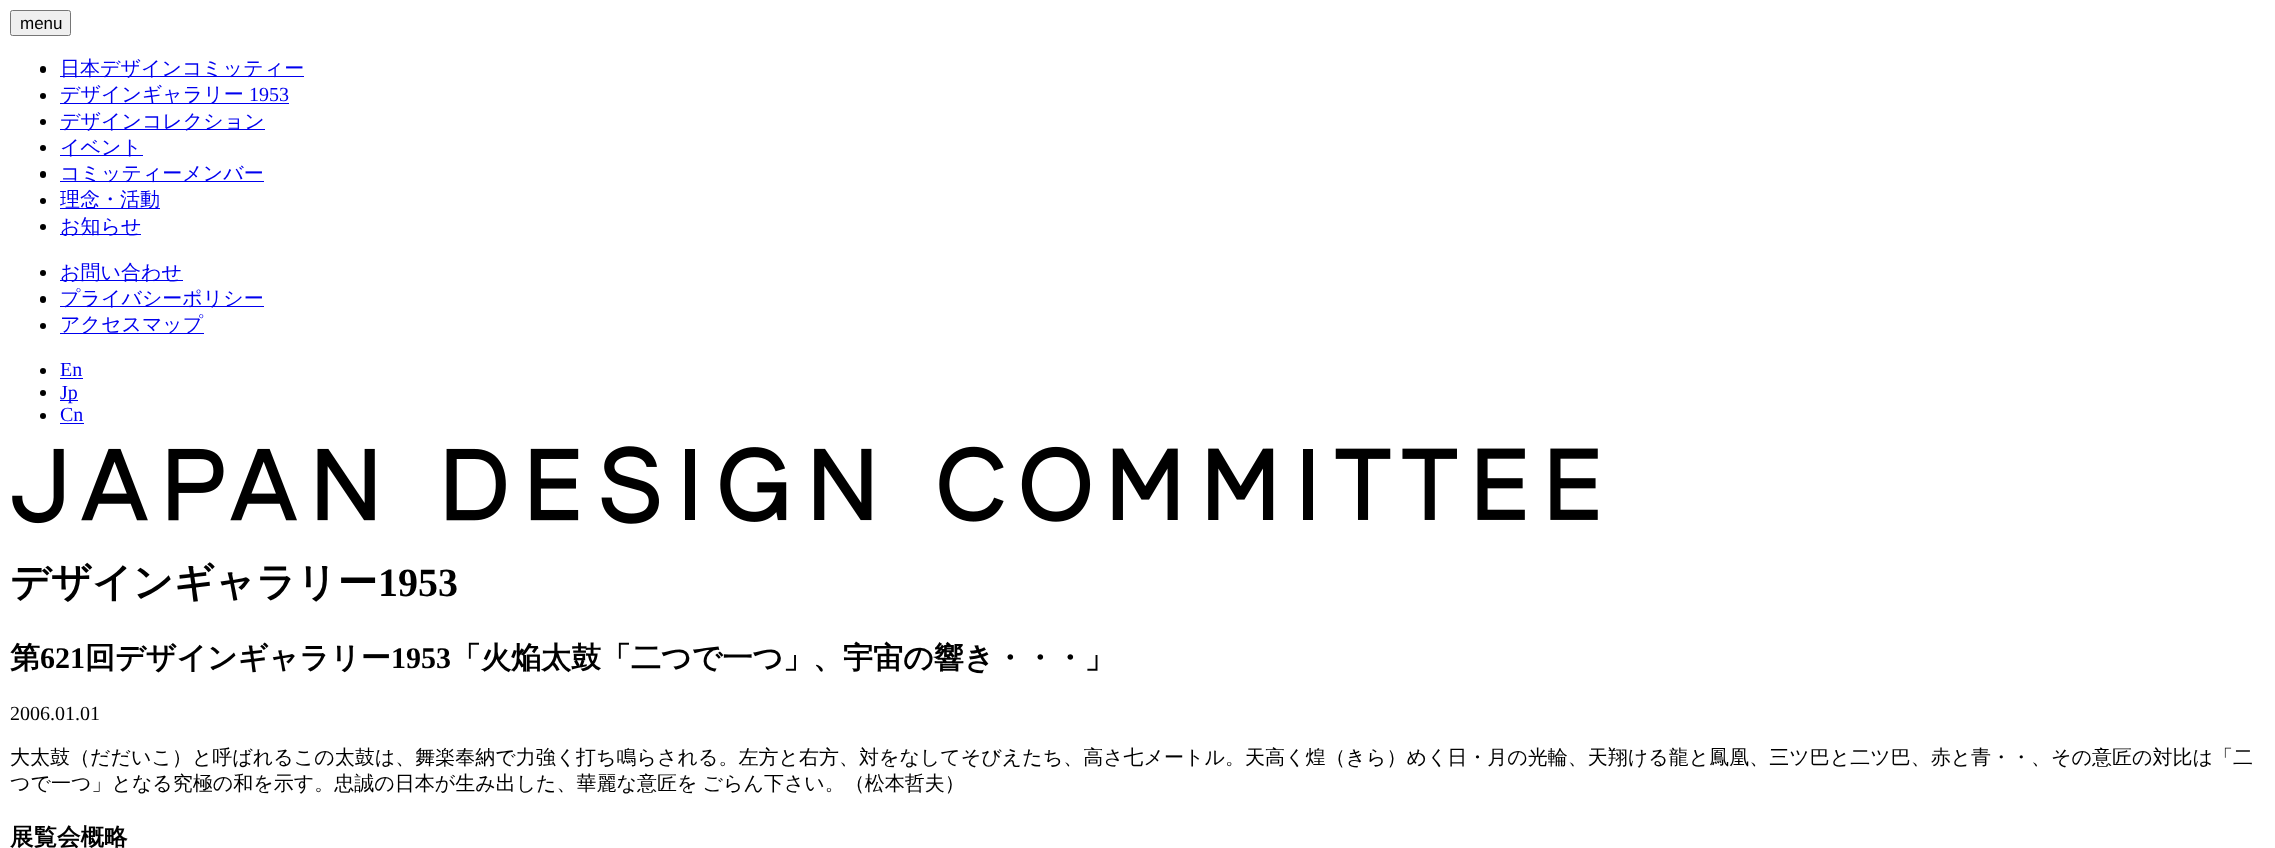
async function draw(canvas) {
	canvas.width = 2275;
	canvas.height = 848;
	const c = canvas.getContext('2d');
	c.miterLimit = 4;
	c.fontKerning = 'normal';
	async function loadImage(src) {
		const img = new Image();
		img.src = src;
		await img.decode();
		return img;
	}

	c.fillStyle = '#fff';
	c.fillRect(0, 0, 2275, 848);
	c.fillStyle = '#efefef';
	c.beginPath();
	c.roundRect(10.5, 10.5, 60, 25, 2);
	c.fill();
	c.strokeStyle = '#767676';
	c.stroke();
	c.font = '17px Liberation Sans';
	c.fillStyle = '#000';
	c.fillText('menu', 20, 29);
	c.beginPath();
	c.roundRect(40, 66, 6, 7, 3);
	c.fill();
	c.fillStyle = '#00e';
	c.fillRect(60, 76, 244, 1);
	c.font = '500 20px WenQuanYi Zen Hei';
	c.fillText('日本デザインコミッティー', 60, 75);
	c.fillStyle = '#000';
	c.beginPath();
	c.arc(43, 96, 3, 0, 2 * Math.PI);
	c.fill();
	c.fillStyle = '#00e';
	c.fillRect(60, 103, 229, 1);
	c.fillText('デザインギャラリー', 60, 101);
	c.font = '20px Liberation Serif';
	c.fillText('1953', 249, 101);
	c.fillStyle = '#000';
	c.beginPath();
	c.arc(43, 122, 3, 0, 2 * Math.PI);
	c.fill();
	c.fillStyle = '#00e';
	c.fillRect(60, 129, 205, 1);
	c.font = '500 20px WenQuanYi Zen Hei';
	c.fillText('デザインコレクション', 60, 128);
	c.fillStyle = '#000';
	c.beginPath();
	c.arc(43, 148, 3, 0, 2 * Math.PI);
	c.fill();
	c.fillStyle = '#00e';
	c.fillRect(60, 155, 83, 1);
	c.fillText('イベント', 60, 154);
	c.fillStyle = '#000';
	c.beginPath();
	c.roundRect(40, 171, 6, 7, 3);
	c.fill();
	c.fillStyle = '#00e';
	c.fillRect(60, 181, 204, 1);
	c.fillText('コミッティーメンバー', 60, 180);
	c.fillStyle = '#000';
	c.beginPath();
	c.arc(43, 201, 3, 0, 2 * Math.PI);
	c.fill();
	c.fillStyle = '#00e';
	c.fillRect(60, 208, 100, 1);
	c.fillText('理念・活動', 60, 206);
	c.fillStyle = '#000';
	c.beginPath();
	c.arc(43, 227, 3, 0, 2 * Math.PI);
	c.fill();
	c.fillStyle = '#00e';
	c.fillRect(60, 234, 81, 1);
	c.fillText('お知らせ', 60, 233);
	c.fillStyle = '#000';
	c.beginPath();
	c.arc(43, 273, 3, 0, 2 * Math.PI);
	c.fill();
	c.fillStyle = '#00e';
	c.fillRect(60, 280, 123, 1);
	c.fillText('お問い合わせ', 60, 279);
	c.fillStyle = '#000';
	c.beginPath();
	c.roundRect(40, 296, 6, 7, 3);
	c.fill();
	c.fillStyle = '#00e';
	c.fillRect(60, 306, 204, 1);
	c.fillText('プライバシーポリシー', 60, 305);
	c.fillStyle = '#000';
	c.beginPath();
	c.arc(43, 326, 3, 0, 2 * Math.PI);
	c.fill();
	c.fillStyle = '#00e';
	c.fillRect(60, 333, 144, 1);
	c.fillText('アクセスマップ', 60, 331);
	c.fillStyle = '#000';
	c.beginPath();
	c.arc(43, 371, 3, 0, 2 * Math.PI);
	c.fill();
	c.font = '20px Liberation Serif';
	c.fillStyle = '#00e';
	c.fillText('En', 60, 376);
	c.fillRect(60, 378, 23, 1);
	c.fillStyle = '#000';
	c.beginPath();
	c.arc(43, 393, 3, 0, 2 * Math.PI);
	c.fill();
	c.fillStyle = '#00e';
	c.fillRect(60, 400, 18, 1);
	c.fillText('Jp', 60, 399);
	c.fillStyle = '#000';
	c.beginPath();
	c.arc(43, 416, 3, 0, 2 * Math.PI);
	c.fill();
	c.fillStyle = '#00e';
	c.fillText('Cn', 60, 421);
	c.fillRect(60, 423, 24, 1);
	c.drawImage(await loadImage('img1.png'), 12, 446, 1586, 78);
	c.font = 'bold 40px WenQuanYi Zen Hei';
	c.fillStyle = '#000';
	c.fillText('デザインギャラリー', 10, 596);
	c.font = 'bold 40px Liberation Serif';
	c.fillText('1953', 378, 596);
	c.font = 'bold 30px WenQuanYi Zen Hei';
	c.fillText('第', 10, 668);
	c.font = 'bold 30px Liberation Serif';
	c.fillText('621', 40, 668);
	c.font = 'bold 30px WenQuanYi Zen Hei';
	c.fillText('回デザインギャラリー', 85, 668);
	c.font = 'bold 30px Liberation Serif';
	c.fillText('1953', 391, 668);
	c.font = 'bold 30px WenQuanYi Zen Hei';
	c.fillText('「火焔太鼓「二つで一つ」、宇宙の響き・・・」', 451, 668);
	c.font = '20px Liberation Serif';
	c.fillText('2006.01.01', 10, 720);
	c.font = '500 20px WenQuanYi Zen Hei';
	c.fillText('大太鼓（だだいこ）と呼ばれるこの太鼓は、舞楽奉納で力強く打ち鳴らされる。左方と右方、対をなしてそびえたち、高さ七メートル。天高く煌（きら）めく日・月の光輪、天翔ける龍と鳳凰、三ツ巴と二ツ巴、赤と青・・、その意匠の対比は「二', 10, 764);
	c.wordSpacing = '-1px';
	c.fillText('つで一つ」となる究極の和を示す。忠誠の日本が生み出した、華麗な意匠を ごらん下さい。（松本哲夫）', 10, 790);
	c.wordSpacing = '0px';
	c.font = 'bold 23.5px WenQuanYi Zen Hei';
	c.fillText('展覧会概略', 10, 845);
}

draw(document.querySelector('canvas'));
